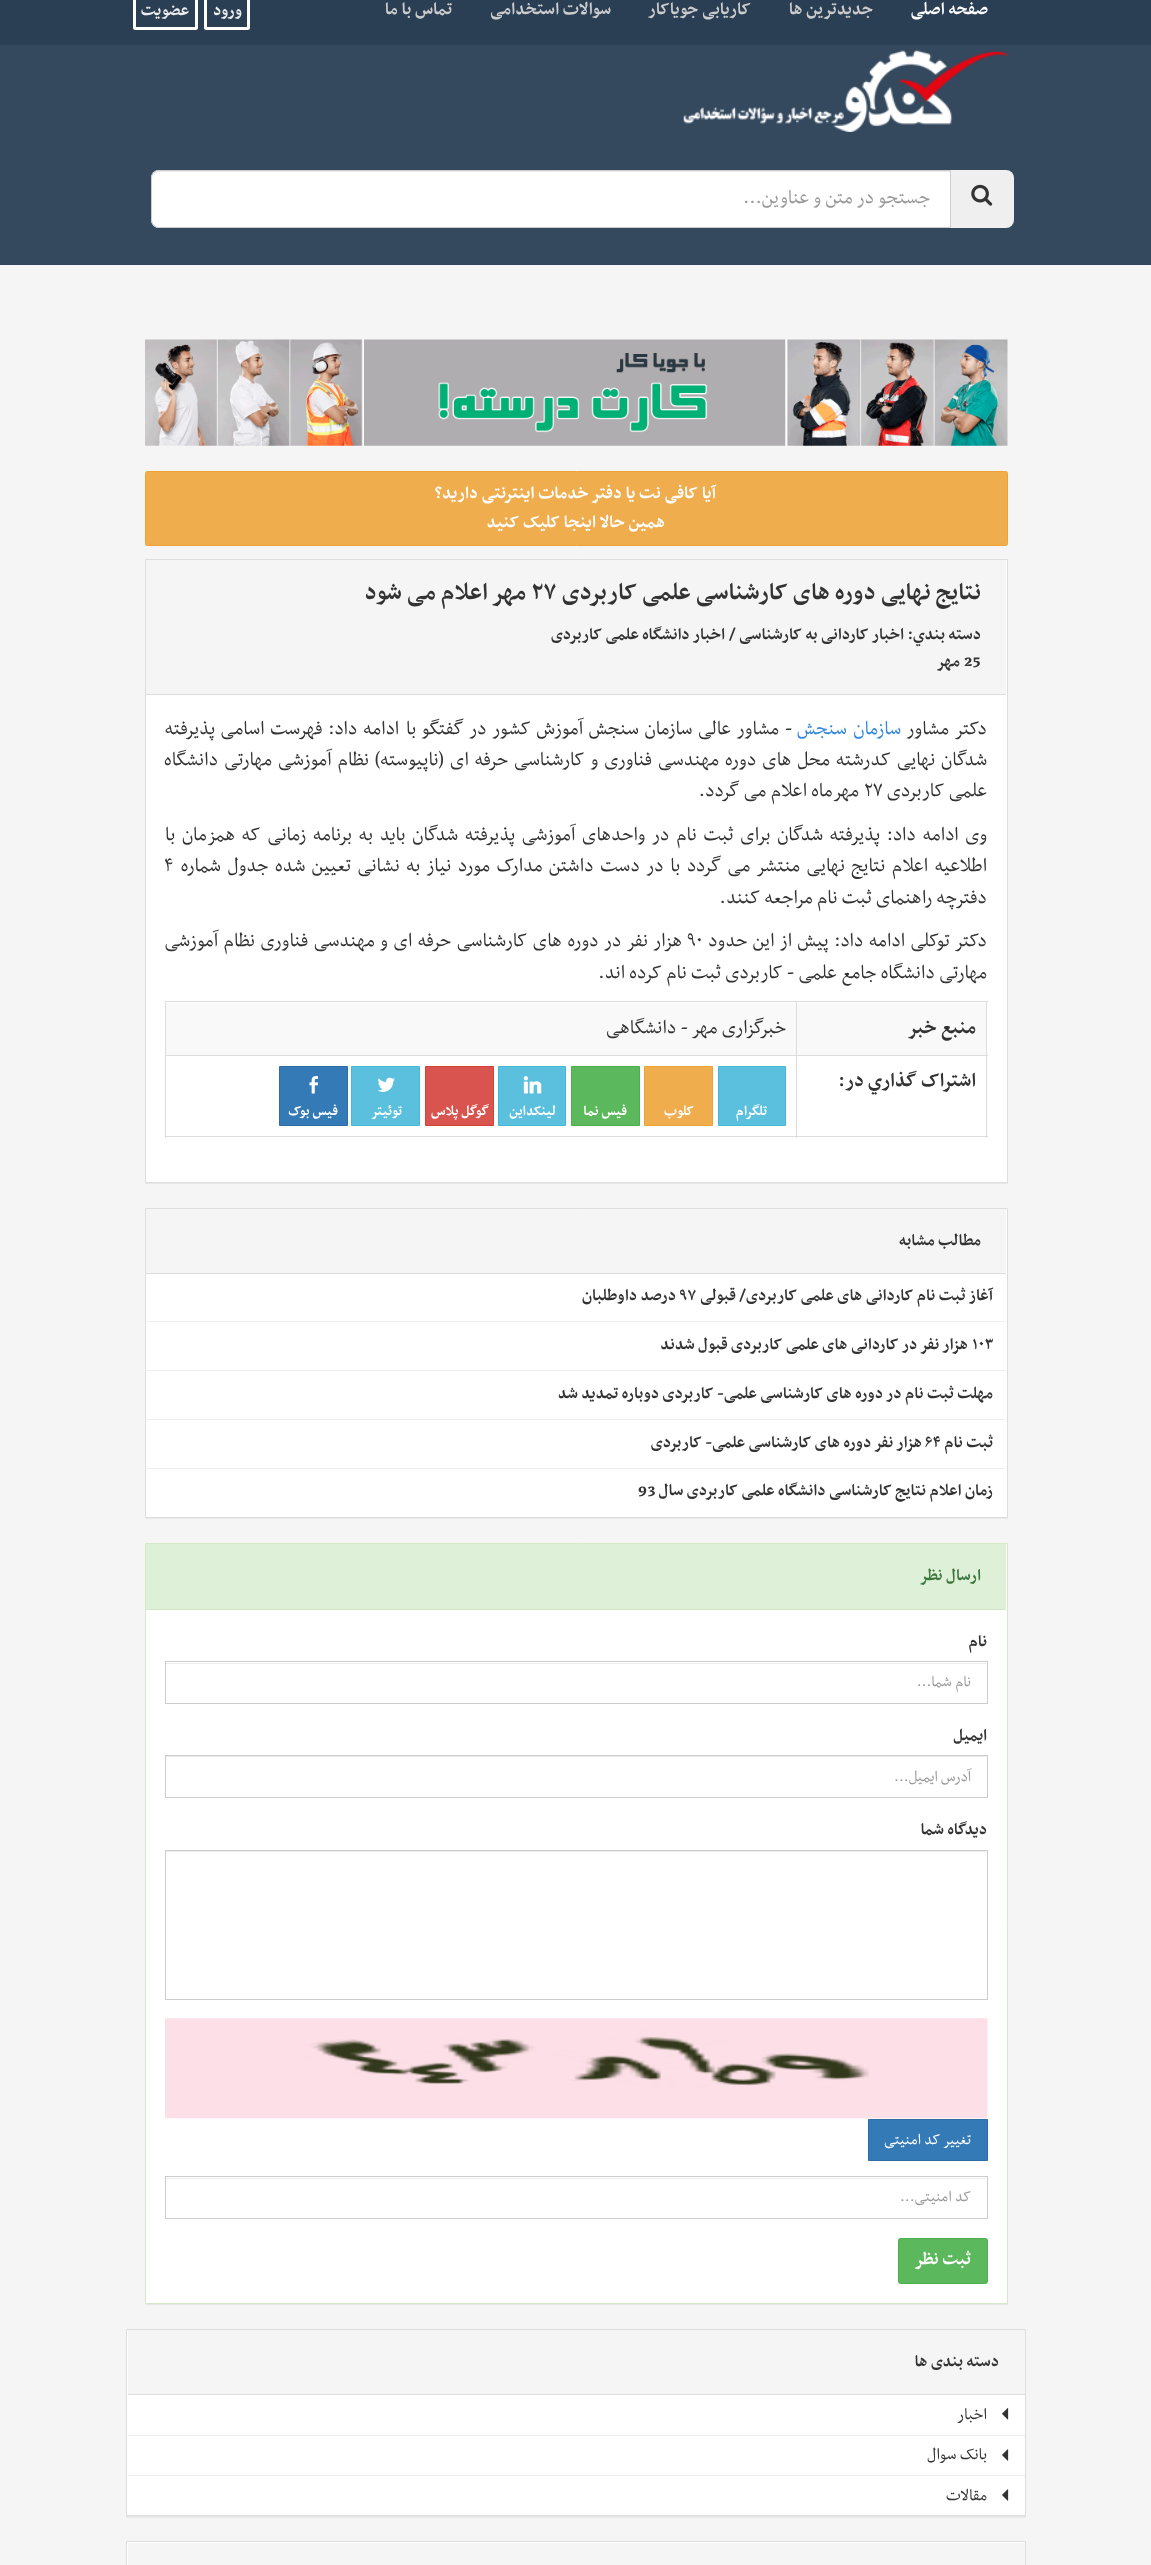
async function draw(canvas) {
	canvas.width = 1151;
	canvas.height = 2565;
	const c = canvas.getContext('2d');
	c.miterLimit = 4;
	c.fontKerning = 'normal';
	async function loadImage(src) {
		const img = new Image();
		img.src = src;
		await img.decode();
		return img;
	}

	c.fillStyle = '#34495e';
	c.fillRect(0, 0, 1151, 2565);
	c.fillStyle = '#2a3f54';
	c.fillRect(0, 0, 1151, 45);
	c.direction = 'rtl';
	c.font = 'bold 20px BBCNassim';
	c.fillStyle = '#fff';
	c.fillText('صفحه اصلی', 988, 14);
	c.fillStyle = '#ccc';
	for (const [text, x, y] of [
		['جدیدترین ها', 873, 14],
		['کاریابی جویاکار', 751, 14],
		['سوالات استخدامی', 611, 14],
		['تماس با ما', 452, 14],
	]) {
		c.fillText(text, x, y);
	}
	c.beginPath();
	c.roundRect(205.5, -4.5, 43, 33, 1);
	c.strokeStyle = '#fff';
	c.lineWidth = 3;
	c.stroke();
	c.font = 'bold 18.75px BBCNassim';
	c.fillStyle = '#eee';
	c.fillText('ورود', 242, 15);
	c.beginPath();
	c.roundRect(134.5, -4.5, 62, 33, 1);
	c.stroke();
	c.fillText('عضویت', 189, 15);
	c.drawImage(await loadImage('img1.png'), 683, 50, 325, 82);
	c.fillStyle = '#efefef';
	c.beginPath();
	c.roundRect(950, 170, 64, 58, [0, 8, 8, 0]);
	c.fill();
	c.drawImage(await loadImage('img2.png'), 971, 184, 22, 22);
	c.fillStyle = '#fff';
	c.beginPath();
	c.roundRect(151, 170, 800, 58, [8, 0, 0, 8]);
	c.fill();
	c.fillStyle = '#ececec';
	c.beginPath();
	c.moveTo(159, 172);
	c.lineTo(950, 172);
	c.lineTo(950, 171);
	c.lineTo(159, 171);
	c.bezierCurveTo(157, 171, 154, 172, 154, 175);
	c.bezierCurveTo(155, 173, 157, 172, 159, 172);
	c.closePath();
	c.fill();
	c.beginPath();
	c.roundRect(151.5, 170.5, 799, 57, [7.5, 0, 0, 7.5]);
	c.strokeStyle = '#ccc';
	c.lineWidth = 1;
	c.stroke();
	c.font = '22.5px BBCNassim';
	c.fillStyle = '#999';
	c.fillText('جستجو در متن و عناوین...', 930, 203);
	c.fillStyle = '#f5f5f5';
	c.fillRect(0, 265, 1151, 2300);
	c.drawImage(await loadImage('img3.png'), 145, 339, 863, 107);
	c.fillStyle = '#f0ad4e';
	c.beginPath();
	c.roundRect(145.5, 471.5, 862, 74, 2);
	c.fill();
	c.strokeStyle = '#eea236';
	c.stroke();
	c.font = 'bold 20px BBCNassim';
	c.fillStyle = '#fff';
	c.fillText('آیا کافی نت یا دفتر خدمات اینترنتی دارید؟', 716, 498);
	c.fillText('همین حالا اینجا کلیک کنید', 665, 527);
	c.fillStyle = '#0000000d';
	c.filter = 'blur(0.5px)';
	c.beginPath();
	c.rect(145, 560, 863, 624);
	c.fill();
	c.filter = 'none';
	c.fillStyle = '#fff';
	c.beginPath();
	c.rect(145.5, 559.5, 862, 623);
	c.fill();
	c.strokeStyle = '#ddd';
	c.stroke();
	c.fillStyle = '#f5f5f5';
	c.fillRect(146, 560, 860, 134);
	c.fillStyle = '#ddd';
	c.fillRect(146, 694, 860, 1);
	c.font = 'bold 27.5px BBCNassim';
	c.fillStyle = '#333';
	c.fillText('نتایج نهایی دوره های کارشناسی علمی کاربردی', 981, 599);
	c.direction = 'ltr';
	c.fillText('۲۷', 531, 599);
	c.direction = 'rtl';
	c.fillText('مهر اعلام می شود', 526, 599);
	c.font = 'bold 18.75px BBCNassim';
	c.fillText('دسته بندي:', 981, 639);
	c.fillText('اخبار کاردانی به کارشناسی', 904, 639);
	c.direction = 'ltr';
	c.fillText('/', 729, 639);
	c.direction = 'rtl';
	c.fillText('اخبار دانشگاه علمی کاربردی', 725, 639);
	c.direction = 'ltr';
	c.fillText('25', 964, 666);
	c.direction = 'rtl';
	c.fillText('مهر', 960, 666);
	c.wordSpacing = '2px';
	c.font = '22.5px BBCNassim';
	c.fillText('دکتر مشاور', 987, 734);
	c.fillStyle = '#38d';
	c.fillText('سازمان سنجش', 901, 734);
	c.wordSpacing = '1.5px';
	c.fillStyle = '#333';
	c.fillText('- مشاور عالی سازمان سنجش آموزش کشور در گفتگو با', 792, 734);
	c.fillText('ادامه داد: فهرست اسامی پذیرفته', 399, 734);
	c.wordSpacing = '1.7px';
	c.fillText('شدگان نهایی کدرشته محل های دوره مهندسی فناوری و کارشناسی حرفه ای (ناپیوسته) نظام آموزشی مهارتی دانشگاه', 987, 765);
	c.wordSpacing = '0px';
	c.fillText('علمی کاربردی', 987, 796);
	c.direction = 'ltr';
	c.fillText('۲۷', 864, 796);
	c.direction = 'rtl';
	c.fillText('مهرماه اعلام می گردد.', 859, 796);
	c.wordSpacing = '2.5px';
	c.fillText('وی ادامه داد: پذیرفته شدگان برای ثبت نام در واحدهای آموزشی پذیرفته شدگان باید به برنامه زمانی که همزمان با', 987, 840);
	c.wordSpacing = '2.25px';
	c.fillText('اطلاعیه اعلام نتایج نهایی منتشر می گردد با در دست داشتن مدارک مورد نیاز به نشانی تعیین شده جدول شماره', 987, 871);
	c.wordSpacing = '0px';
	c.direction = 'ltr';
	c.fillText('۴', 164, 871);
	c.direction = 'rtl';
	c.fillText('دفترچه راهنمای ثبت نام مراجعه کنند.', 987, 903);
	c.wordSpacing = '1.25px';
	c.fillText('دکتر توکلی ادامه داد: پیش از این حدود', 987, 946);
	c.wordSpacing = '0px';
	c.direction = 'ltr';
	c.fillText('۹۰', 687, 946);
	c.wordSpacing = '1.25px';
	c.direction = 'rtl';
	c.fillText('هزار نفر در دوره های کارشناسی حرفه ای و مهندسی فناوری نظام آموزشی', 682, 946);
	c.wordSpacing = '0px';
	c.fillText('مهارتی دانشگاه جامع علمی - کاربردی ثبت نام کرده اند.', 987, 978);
	for (const [x, y, w, h, color] of [
		[165, 1001, 823, 1, '#ddd'],
		[986, 1001, 1, 137, '#ddd'],
		[165, 1136, 823, 1, '#ddd'],
		[165, 1001, 1, 137, '#ddd'],
		[166, 1003, 820, 52, '#f9f9f9'],
	]) {
		c.fillStyle = color;
		c.fillRect(x, y, w, h);
	}
	c.font = 'bold 22.5px BBCNassim';
	c.fillStyle = '#333';
	c.fillText('منبع خبر', 976, 1033);
	for (const [x, y, w, h, color] of [
		[165, 1055, 633, 1, '#ddd'],
		[796, 1055, 1, 83, '#ddd'],
		[796, 1055, 192, 1, '#ddd'],
		[796, 1001, 1, 55, '#ddd'],
	]) {
		c.fillStyle = color;
		c.fillRect(x, y, w, h);
	}
	c.font = '22.5px BBCNassim';
	c.fillStyle = '#333';
	c.fillText('خبرگزاری مهر - دانشگاهی', 786, 1033);
	c.font = 'bold 22.5px BBCNassim';
	c.fillText('اشتراک گذاري در:', 976, 1086);
	c.fillStyle = '#5bc0de';
	c.beginPath();
	c.rect(718.5, 1066.5, 67, 59);
	c.fill();
	c.strokeStyle = '#46b8da';
	c.stroke();
	c.font = 'bold 16px BBCNassim';
	c.fillStyle = '#fff';
	c.fillText('تلگرام', 767, 1115);
	c.fillStyle = '#f0ad4e';
	c.beginPath();
	c.rect(644.5, 1066.5, 68, 59);
	c.fill();
	c.strokeStyle = '#eea236';
	c.stroke();
	c.fillStyle = '#fff';
	c.fillText('کلوب', 694, 1115);
	c.fillStyle = '#5cb85c';
	c.beginPath();
	c.rect(571.5, 1066.5, 68, 59);
	c.fill();
	c.strokeStyle = '#4cae4c';
	c.stroke();
	c.fillStyle = '#fff';
	c.fillText('فيس نما', 627, 1115);
	c.fillStyle = '#5bc0de';
	c.beginPath();
	c.rect(498.5, 1066.5, 67, 59);
	c.fill();
	c.strokeStyle = '#46b8da';
	c.stroke();
	c.drawImage(await loadImage('img4.png'), 523, 1076, 19, 18);
	c.fillStyle = '#fff';
	c.fillText('لينکداين', 556, 1115);
	c.fillStyle = '#d9534f';
	c.beginPath();
	c.rect(425.5, 1066.5, 68, 59);
	c.fill();
	c.strokeStyle = '#d43f3a';
	c.stroke();
	c.fillStyle = '#fff';
	c.fillText('گوگل پلاس', 489, 1115);
	c.fillStyle = '#5bc0de';
	c.beginPath();
	c.rect(351.5, 1066.5, 68, 59);
	c.fill();
	c.strokeStyle = '#46b8da';
	c.stroke();
	c.drawImage(await loadImage('img5.png'), 377, 1077, 18, 15);
	c.fillStyle = '#fff';
	c.fillText('توئيتر', 402, 1115);
	c.fillStyle = '#337ab7';
	c.beginPath();
	c.rect(279.5, 1066.5, 68, 59);
	c.fill();
	c.strokeStyle = '#2e6da4';
	c.stroke();
	c.drawImage(await loadImage('img6.png'), 309, 1076, 9, 18);
	c.fillStyle = '#fff';
	c.fillText('فيس بوک', 338, 1115);
	c.fillStyle = '#0000000d';
	c.filter = 'blur(0.5px)';
	c.beginPath();
	c.rect(145, 1209, 863, 310);
	c.fill();
	c.filter = 'none';
	c.fillStyle = '#fff';
	c.beginPath();
	c.rect(145.5, 1208.5, 862, 309);
	c.fill();
	c.strokeStyle = '#ddd';
	c.stroke();
	c.fillStyle = '#f5f5f5';
	c.fillRect(146, 1209, 860, 64);
	c.fillStyle = '#ddd';
	c.fillRect(146, 1273, 860, 1);
	c.font = 'bold 18.75px BBCNassim';
	c.fillStyle = '#333';
	c.fillText('مطالب مشابه', 981, 1245);
	c.fillText('آغاز ثبت نام کاردانی های علمی کاربردی/ قبولی', 993, 1300);
	c.direction = 'ltr';
	c.fillText('۹۷', 679, 1300);
	c.direction = 'rtl';
	c.fillText('درصد داوطلبان', 676, 1300);
	c.fillStyle = '#efefef';
	c.fillRect(146, 1321, 860, 1);
	c.direction = 'ltr';
	c.fillStyle = '#333';
	c.fillText('۱۰۳', 972, 1349);
	c.direction = 'rtl';
	c.fillText('هزار نفر در کاردانی های علمی کاربردی قبول شدند', 968, 1349);
	c.fillStyle = '#efefef';
	c.fillRect(146, 1370, 860, 1);
	c.fillStyle = '#333';
	c.fillText('مهلت ثبت نام در دوره های کارشناسی علمی- کاربردی دوباره تمدید شد', 993, 1398);
	c.fillStyle = '#efefef';
	c.fillRect(146, 1419, 860, 1);
	c.fillStyle = '#333';
	c.fillText('ثبت نام', 993, 1447);
	c.direction = 'ltr';
	c.fillText('۶۴', 925, 1447);
	c.direction = 'rtl';
	c.fillText('هزار نفر دوره های کارشناسی علمی- کاربردی', 922, 1447);
	c.fillStyle = '#efefef';
	c.fillRect(146, 1468, 860, 1);
	c.fillStyle = '#333';
	c.fillText('زمان اعلام نتایج کارشناسی دانشگاه علمی کاربردی سال', 993, 1495);
	c.direction = 'ltr';
	c.fillText('93', 638, 1495);
	c.fillStyle = '#0000000d';
	c.filter = 'blur(0.5px)';
	c.beginPath();
	c.rect(145, 1544, 863, 761);
	c.fill();
	c.filter = 'none';
	c.fillStyle = '#fff';
	c.beginPath();
	c.rect(145.5, 1543.5, 862, 760);
	c.fill();
	c.strokeStyle = '#d6e9c6';
	c.stroke();
	c.fillStyle = '#dff0d8';
	c.fillRect(146, 1544, 860, 65);
	c.fillStyle = '#d6e9c6';
	c.fillRect(146, 1609, 860, 1);
	c.direction = 'rtl';
	c.fillStyle = '#3c763d';
	c.fillText('ارسال نظر', 981, 1580);
	c.fillStyle = '#333';
	c.fillText('نام', 987, 1646);
	c.fillStyle = '#ececec';
	c.fillRect(166, 1663, 820, 1);
	c.strokeStyle = '#ccc';
	c.strokeRect(165.5, 1661.5, 822, 42);
	c.font = '17.5px BBCNassim';
	c.fillStyle = '#999';
	c.fillText('نام شما...', 971, 1686);
	c.font = 'bold 18.75px BBCNassim';
	c.fillStyle = '#333';
	c.fillText('ایمیل', 987, 1740);
	c.fillStyle = '#ececec';
	c.fillRect(166, 1756, 820, 1);
	c.strokeRect(165.5, 1755.5, 822, 42);
	c.font = '17.5px BBCNassim';
	c.fillStyle = '#999';
	c.fillText('آدرس ایمیل...', 971, 1781);
	c.font = 'bold 18.75px BBCNassim';
	c.fillStyle = '#333';
	c.fillText('دیدگاه شما', 987, 1834);
	c.fillStyle = '#ececec';
	c.fillRect(166, 1851, 820, 1);
	c.strokeRect(165.5, 1850.5, 822, 149);
	c.drawImage(await loadImage('img7.png'), 165, 2018, 823, 101);
	c.fillStyle = '#337ab7';
	c.beginPath();
	c.rect(868.5, 2119.5, 119, 41);
	c.fill();
	c.strokeStyle = '#2e6da4';
	c.stroke();
	c.font = '17.5px BBCNassim';
	c.fillStyle = '#fff';
	c.fillText('تغییر کد امنیتی', 971, 2144);
	c.fillStyle = '#ececec';
	c.fillRect(166, 2178, 820, 1);
	c.strokeStyle = '#ccc';
	c.strokeRect(165.5, 2176.5, 822, 42);
	c.fillStyle = '#999';
	c.fillText('کد امنیتی...', 971, 2201);
	c.fillStyle = '#5cb85c';
	c.beginPath();
	c.roundRect(898.5, 2238.5, 89, 45, 2);
	c.fill();
	c.strokeStyle = '#4cae4c';
	c.stroke();
	c.font = 'bold 20px BBCNassim';
	c.fillStyle = '#fff';
	c.fillText('ثبت نظر', 971, 2264);
	c.fillStyle = '#0000000d';
	c.filter = 'blur(0.5px)';
	c.beginPath();
	c.rect(126, 2330, 900, 188);
	c.fill();
	c.filter = 'none';
	c.fillStyle = '#fff';
	c.beginPath();
	c.rect(126.5, 2329.5, 899, 186);
	c.fill();
	c.strokeStyle = '#ddd';
	c.stroke();
	c.fillStyle = '#f5f5f5';
	c.fillRect(128, 2330, 897, 64);
	c.fillStyle = '#ddd';
	c.fillRect(128, 2394, 897, 1);
	c.font = 'bold 18.75px BBCNassim';
	c.fillStyle = '#333';
	c.fillText('دسته بندی ها', 999, 2366);
	c.drawImage(await loadImage('img8.png'), 1002, 2408, 7, 12);
	c.font = '18.75px BBCNassim';
	c.fillText('اخبار', 987, 2419);
	c.fillStyle = '#efefef';
	c.fillRect(128, 2435, 897, 1);
	c.drawImage(await loadImage('img9.png'), 1002, 2449, 7, 12);
	c.fillStyle = '#333';
	c.fillText('بانک سوال', 987, 2459);
	c.fillStyle = '#efefef';
	c.fillRect(128, 2475, 897, 1);
	c.drawImage(await loadImage('img9.png'), 1002, 2489, 7, 12);
	c.fillStyle = '#333';
	c.fillText('مقالات', 987, 2500);
	c.fillStyle = '#fff';
	c.beginPath();
	c.rect(126.5, 2541.5, 899, 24);
	c.fill();
	c.stroke();
	c.fillStyle = '#f5f5f5';
	c.fillRect(128, 2543, 897, 22);
}

draw(document.querySelector('canvas'));
